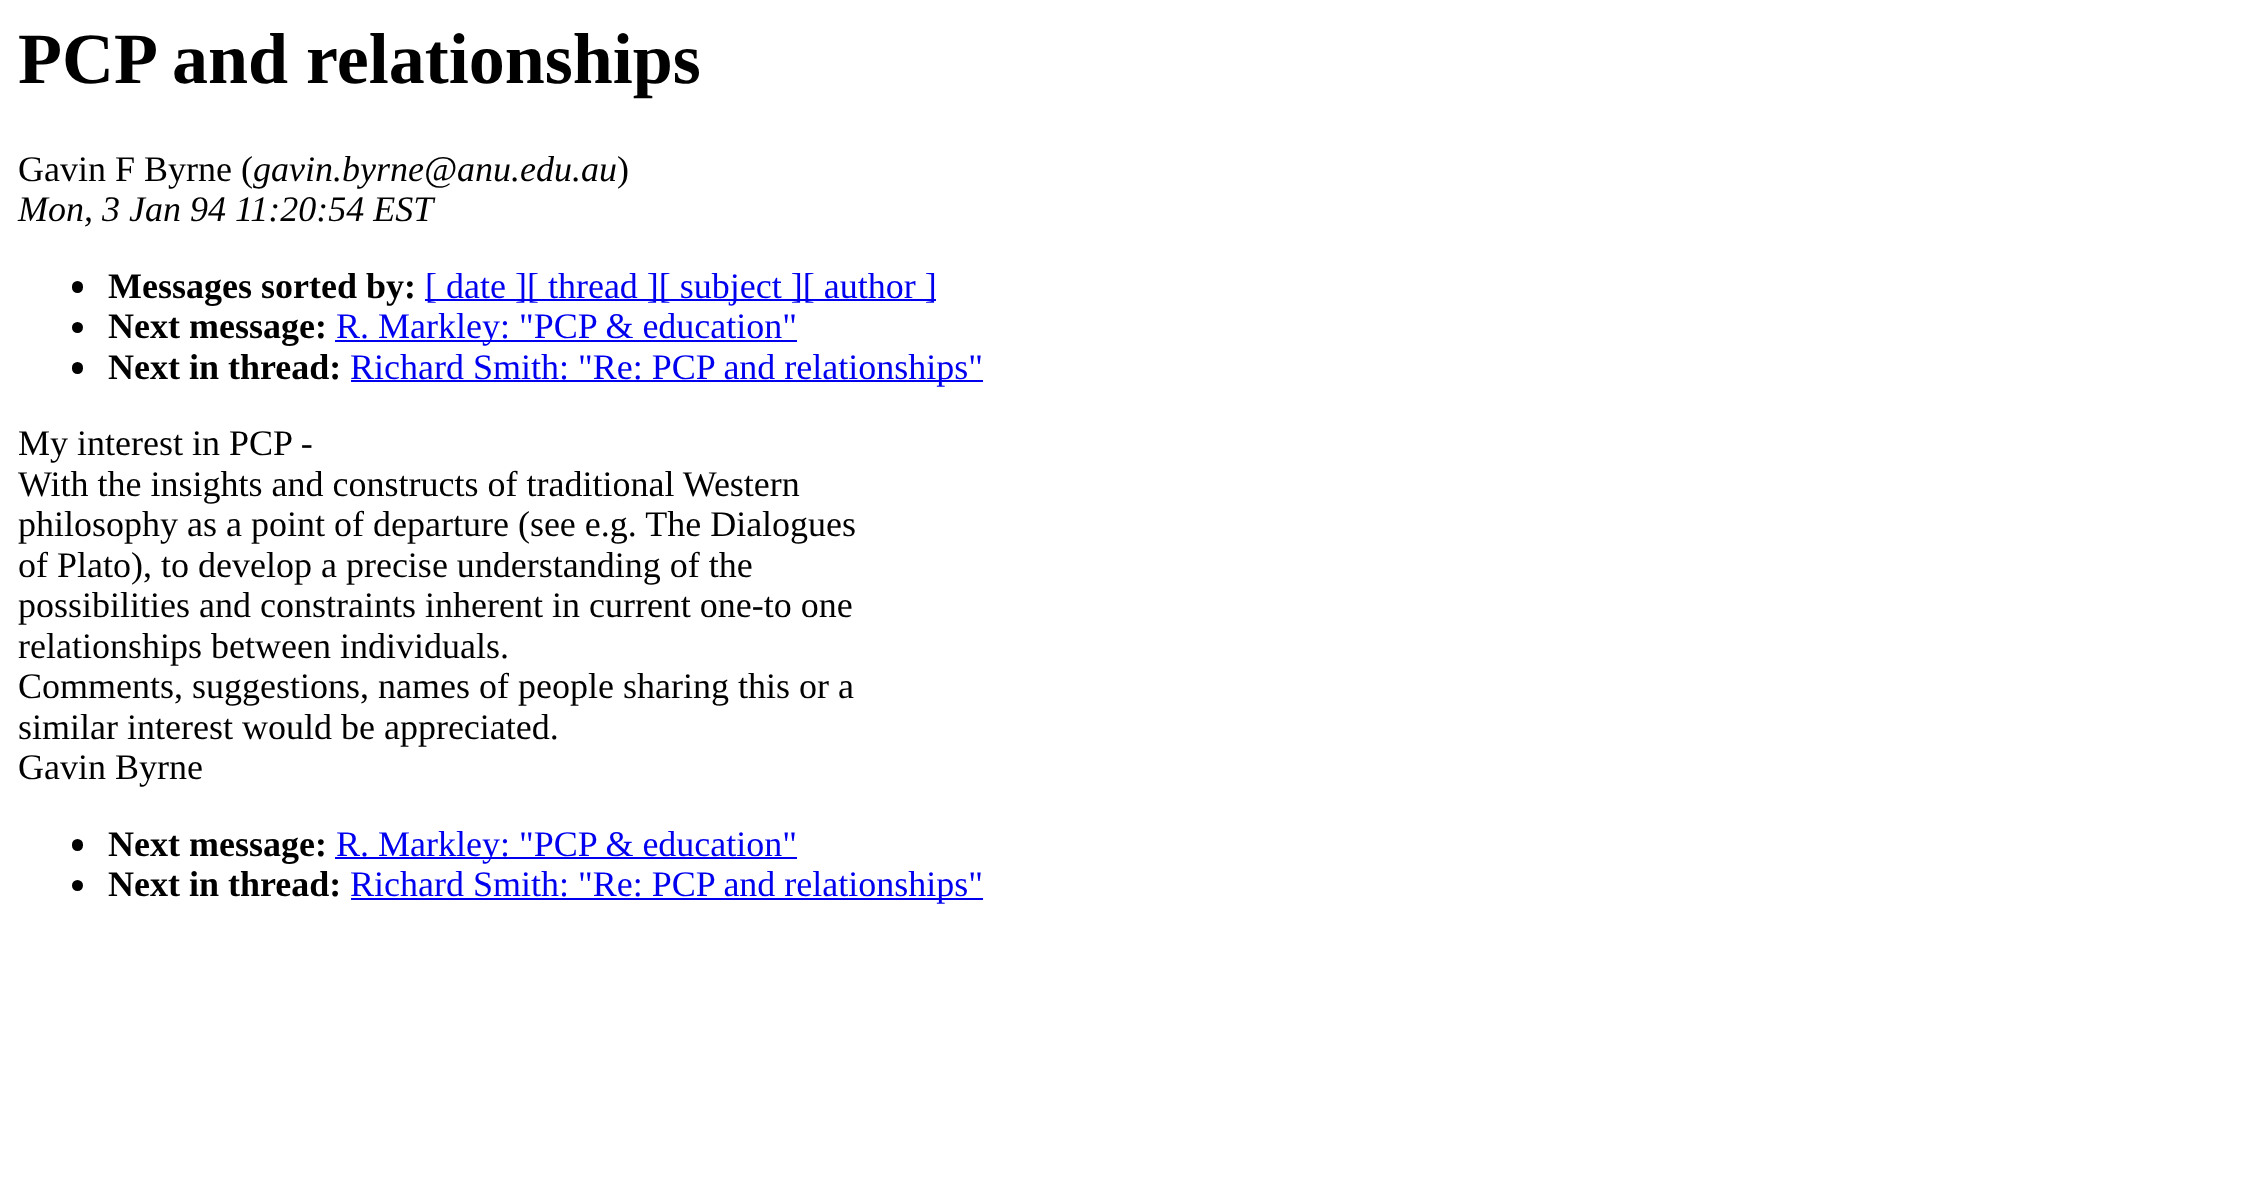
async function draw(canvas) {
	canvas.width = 2255;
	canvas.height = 1199;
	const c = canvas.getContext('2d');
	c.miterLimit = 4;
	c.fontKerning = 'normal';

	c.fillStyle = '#fff';
	c.fillRect(0, 0, 2255, 1199);
	c.font = 'bold 72px Liberation Serif';
	c.fillStyle = '#000';
	c.fillText('PCP and relationships', 18, 83);
	c.font = '36px Liberation Serif';
	c.fillText('Gavin F Byrne (', 18, 181);
	c.font = 'italic 36px Liberation Serif';
	c.fillText('gavin.byrne@anu.edu.au', 253, 181);
	c.font = '36px Liberation Serif';
	c.fillText(')', 617, 181);
	c.font = 'italic 36px Liberation Serif';
	c.fillText('Mon, 3 Jan 94 11:20:54 EST', 18, 221);
	c.beginPath();
	c.roundRect(72, 281, 11, 12, 5.5);
	c.fill();
	c.font = 'bold 36px Liberation Serif';
	c.fillText('Messages sorted by:', 108, 298);
	c.fillStyle = '#00e';
	c.fillRect(425, 299, 511, 2);
	c.font = '36px Liberation Serif';
	c.fillText('[ date ][ thread ][ subject ][ author ]', 425, 298);
	c.fillStyle = '#000';
	c.beginPath();
	c.arc(77.5, 327.5, 5.5, 0, 2 * Math.PI);
	c.fill();
	c.font = 'bold 36px Liberation Serif';
	c.fillText('Next message:', 108, 338);
	c.fillStyle = '#00e';
	c.fillRect(335, 340, 462, 2);
	c.font = '36px Liberation Serif';
	c.fillText('R. Markley: "PCP & education"', 336, 338);
	c.fillStyle = '#000';
	c.beginPath();
	c.roundRect(72, 362, 11, 12, 5.5);
	c.fill();
	c.font = 'bold 36px Liberation Serif';
	c.fillText('Next in thread:', 108, 379);
	c.fillStyle = '#00e';
	c.fillRect(351, 380, 632, 2);
	c.font = '36px Liberation Serif';
	c.fillText('Richard Smith: "Re: PCP and relationships"', 350, 379);
	c.fillStyle = '#000';
	for (const [text, x, y] of [
		['My interest in PCP -', 18, 455],
		['With the insights and constructs of traditional Western', 18, 496],
		['philosophy as a point of departure (see e.g. The Dialogues', 18, 536],
		['of Plato), to develop a precise understanding of the', 18, 577],
		['possibilities and constraints inherent in current one-to one', 18, 617],
		['relationships between individuals.', 18, 658],
		['Comments, suggestions, names of people sharing this or a', 18, 698],
		['similar interest would be appreciated.', 18, 739],
		['Gavin Byrne', 18, 779],
	]) {
		c.fillText(text, x, y);
	}
	c.beginPath();
	c.roundRect(72, 839, 11, 12, 5.5);
	c.fill();
	c.font = 'bold 36px Liberation Serif';
	c.fillText('Next message:', 108, 856);
	c.fillStyle = '#00e';
	c.fillRect(335, 857, 462, 2);
	c.font = '36px Liberation Serif';
	c.fillText('R. Markley: "PCP & education"', 336, 856);
	c.fillStyle = '#000';
	c.beginPath();
	c.arc(77.5, 885.5, 5.5, 0, 2 * Math.PI);
	c.fill();
	c.font = 'bold 36px Liberation Serif';
	c.fillText('Next in thread:', 108, 896);
	c.fillStyle = '#00e';
	c.fillRect(351, 898, 632, 2);
	c.font = '36px Liberation Serif';
	c.fillText('Richard Smith: "Re: PCP and relationships"', 350, 896);
}

draw(document.querySelector('canvas'));
